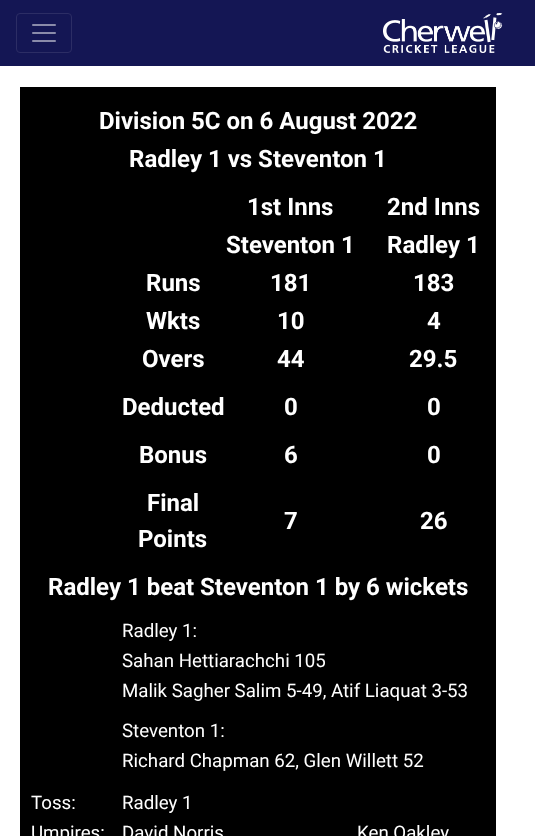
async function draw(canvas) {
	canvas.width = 535;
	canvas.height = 836;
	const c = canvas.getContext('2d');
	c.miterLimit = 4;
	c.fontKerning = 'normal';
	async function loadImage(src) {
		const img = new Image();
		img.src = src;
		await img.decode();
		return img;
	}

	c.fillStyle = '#fff';
	c.fillRect(0, 0, 535, 836);
	c.fillStyle = '#141654';
	c.fillRect(0, 0, 535, 66);
	c.beginPath();
	c.roundRect(16.5, 13.5, 55, 39, 3.5);
	c.strokeStyle = '#2c2d65';
	c.stroke();
	c.drawImage(await loadImage('img1.png'), 32, 24, 24, 18);
	c.drawImage(await loadImage('img2.png'), 383, 13, 120, 40);
	c.fillStyle = '#000';
	c.fillRect(20, 87, 476, 749);
	c.font = 'bold 24px Roboto';
	c.fillStyle = '#fff';
	for (const [text, x, y] of [
		['Division 5C on 6 August 2022', 99, 129],
		['Radley 1 vs Steventon 1', 129, 167],
		['1st Inns', 247, 215],
		['2nd Inns', 387, 215],
		['Steventon 1', 226, 253],
		['Radley 1', 387, 253],
		['Runs', 146, 291],
		['181', 270, 291],
		['183', 413, 291],
		['Wkts', 146, 329],
		['10', 277, 329],
		['4', 427, 329],
		['Overs', 142, 367],
		['44', 277, 367],
		['29.5', 409, 367],
		['Deducted', 122, 415],
		['0', 284, 415],
		['0', 427, 415],
		['Bonus', 139, 463],
		['6', 284, 463],
		['0', 427, 463],
		['Final', 147, 511],
		['Points', 138, 547],
		['7', 284, 529],
		['26', 420, 529],
		['Radley 1 beat Steventon 1 by 6 wickets', 48, 595],
	]) {
		c.fillText(text, x, y);
	}
	c.font = '18.7px Roboto';
	for (const [text, x, y] of [
		['Radley 1:', 122, 637],
		['Sahan Hettiarachchi 105', 122, 667],
		['Malik Sagher Salim 5-49, Atif Liaquat 3-53', 122, 697],
		['Steventon 1:', 122, 737],
		['Richard Chapman 62, Glen Willett 52', 122, 767],
		['Toss:', 31, 809],
		['Radley 1', 122, 809],
		['Umpires:', 31, 839],
		['David Norris', 122, 839],
		['Ken Oakley', 357, 839],
	]) {
		c.fillText(text, x, y);
	}
}

draw(document.querySelector('canvas'));
